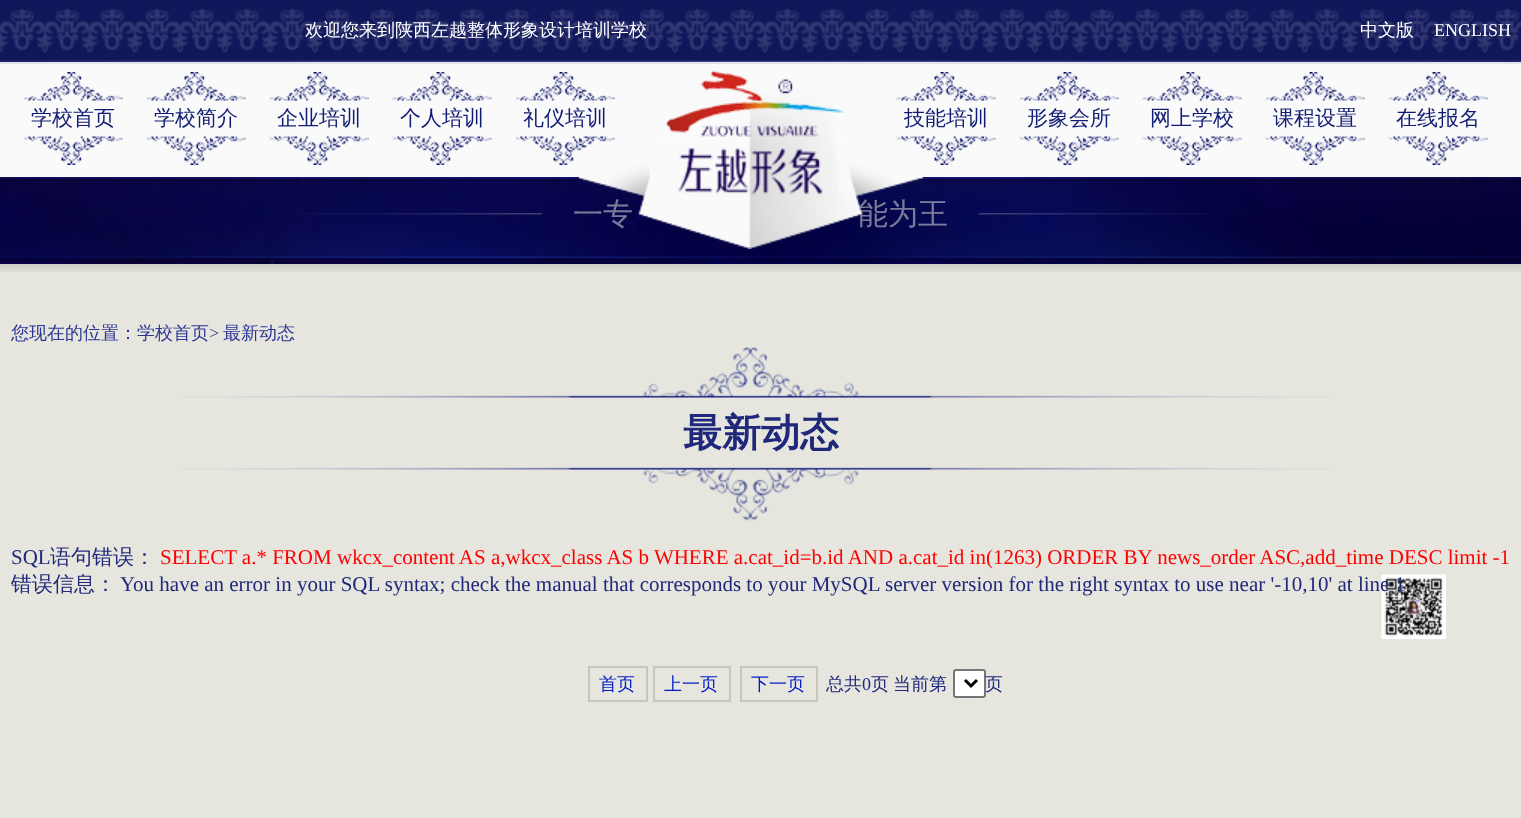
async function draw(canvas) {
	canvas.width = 1521;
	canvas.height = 818;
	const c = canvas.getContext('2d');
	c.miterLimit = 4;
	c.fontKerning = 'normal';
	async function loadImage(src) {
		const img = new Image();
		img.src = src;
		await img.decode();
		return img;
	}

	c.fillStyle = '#e6e6df';
	c.fillRect(0, 0, 1521, 818);
	c.drawImage(await loadImage('img7.png'), 0, 61, 1521, 203);
	c.drawImage(await loadImage('img1.png'), 0, 0, 1521, 62);
	c.fillStyle = '#e3e4e9';
	c.fillRect(0, 62, 1521, 2);
	c.font = '500 18px WenQuanYi Zen Hei';
	c.fillStyle = '#fff';
	c.fillText('欢迎您来到陕西左越整体形象设计培训学校', 305, 36);
	c.fillText('中文版', 1360, 36);
	c.font = '18px Liberation Serif';
	c.fillText('ENGLISH', 1434, 36);
	c.fillStyle = '#fafafa';
	c.fillRect(0, 64, 1521, 113);
	c.drawImage(await loadImage('img2.png'), 23, 72, 100, 93);
	c.font = '500 21px WenQuanYi Zen Hei';
	c.fillStyle = '#101c73';
	c.fillText('学校首页', 31, 125);
	c.drawImage(await loadImage('img3.png'), 145, 72, 101, 93);
	c.fillText('学校简介', 154, 125);
	c.drawImage(await loadImage('img3.png'), 268, 72, 101, 93);
	c.fillText('企业培训', 277, 125);
	c.drawImage(await loadImage('img3.png'), 391, 72, 101, 93);
	c.fillText('个人培训', 400, 125);
	c.drawImage(await loadImage('img2.png'), 515, 72, 100, 93);
	c.fillText('礼仪培训', 523, 125);
	c.drawImage(await loadImage('img3.png'), 895, 72, 101, 93);
	c.fillText('技能培训', 904, 125);
	c.drawImage(await loadImage('img8.png'), 266, 213, 277, 2);
	c.font = '500 30px WenQuanYi Zen Hei';
	c.fillStyle = '#fff';
	c.fillText('一专', 573, 224);
	c.fillText('能为王', 858, 224);
	c.drawImage(await loadImage('img9.png'), 978, 213, 277, 2);
	c.drawImage(await loadImage('img6.png'), 0, 179, 1521, 93);
	c.drawImage(await loadImage('img4.png'), 579, 70, 344, 179);
	c.drawImage(await loadImage('img5.png'), 1018, 72, 101, 93);
	c.font = '500 21px WenQuanYi Zen Hei';
	c.fillStyle = '#101c73';
	c.fillText('形象会所', 1027, 125);
	c.drawImage(await loadImage('img3.png'), 1141, 72, 101, 93);
	c.fillText('网上学校', 1150, 125);
	c.drawImage(await loadImage('img3.png'), 1264, 72, 101, 93);
	c.fillText('课程设置', 1273, 125);
	c.drawImage(await loadImage('img3.png'), 1387, 72, 101, 93);
	c.fillText('在线报名', 1396, 125);
	c.font = '500 18px WenQuanYi Zen Hei';
	c.fillStyle = '#2c3694';
	c.fillText('您现在的位置：学校首页', 11, 339);
	c.font = '18px Liberation Serif';
	c.fillText('>', 209, 339);
	c.font = '500 18px WenQuanYi Zen Hei';
	c.fillText('最新动态', 223, 339);
	c.drawImage(await loadImage('img10.png'), 181, 347, 1153, 174);
	c.font = 'bold 39px WenQuanYi Zen Hei';
	c.fillStyle = '#1f287a';
	c.fillText('最新动态', 683, 446);
	c.font = '21px Liberation Serif';
	c.fillText('SQL', 11, 564);
	c.font = '500 21px WenQuanYi Zen Hei';
	c.fillText('语句错误：', 50, 564);
	c.font = '21px Liberation Serif';
	c.fillStyle = '#f00';
	c.fillText('SELECT a.* FROM wkcx_content AS a,wkcx_class AS b WHERE a.cat_id=b.id AND a.cat_id in(1263) ORDER BY news_order ASC,add_time DESC limit -1', 160, 564);
	c.font = '500 21px WenQuanYi Zen Hei';
	c.fillStyle = '#1f287a';
	c.fillText('错误信息：', 11, 591);
	c.drawImage(await loadImage('img11.png'), 1381, 574, 65, 65);
	c.font = '21px Liberation Serif';
	c.fillText('You have an error in your SQL syntax; check the manual that corresponds to your MySQL server version for the right syntax to use near \'-10,10\' at line 1', 120, 591);
	c.strokeStyle = '#c7c7c0';
	c.lineWidth = 2;
	c.strokeRect(589, 667, 58, 34);
	c.font = '500 18px WenQuanYi Zen Hei';
	c.fillStyle = '#001bc6';
	c.fillText('首页', 599, 690);
	c.strokeRect(654, 667, 76, 34);
	c.fillText('上一页', 664, 690);
	c.strokeRect(741, 667, 76, 34);
	c.fillText('下一页', 751, 690);
	c.fillStyle = '#1f287a';
	c.fillText('总共', 826, 690);
	c.font = '18px Liberation Serif';
	c.fillText('0', 862, 690);
	c.font = '500 18px WenQuanYi Zen Hei';
	c.fillText('页', 871, 690);
	c.fillText('当前第', 893, 690);
	c.fillStyle = '#fff';
	c.beginPath();
	c.roundRect(954, 670, 31, 27, 2);
	c.fill();
	c.strokeStyle = '#767676';
	c.stroke();
	c.beginPath();
	c.moveTo(965, 680);
	c.lineTo(971, 686);
	c.lineTo(977, 680);
	c.strokeStyle = '#000';
	c.lineWidth = 3;
	c.stroke();
	c.fillStyle = '#1f287a';
	c.fillText('页', 985, 690);
}

draw(document.querySelector('canvas'));
